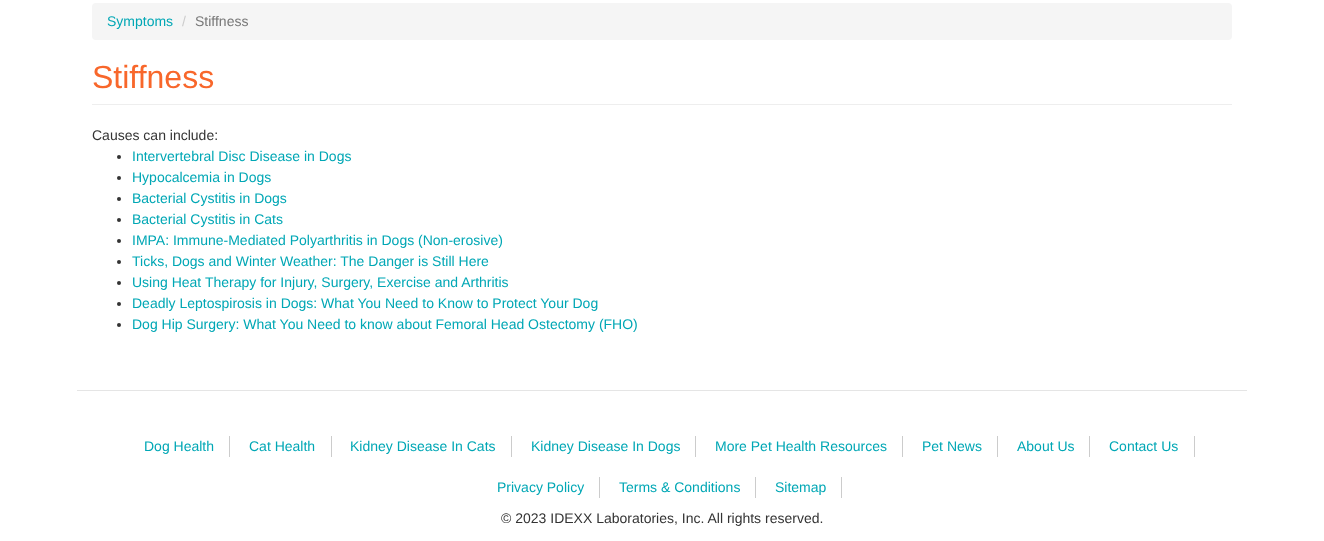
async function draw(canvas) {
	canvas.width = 1324;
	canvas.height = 541;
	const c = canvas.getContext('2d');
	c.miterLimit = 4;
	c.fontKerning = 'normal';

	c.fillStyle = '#fff';
	c.fillRect(0, 0, 1324, 541);
	c.fillStyle = '#f5f5f5';
	c.beginPath();
	c.roundRect(92, 3, 1140, 37, 4);
	c.fill();
	c.font = '14px Liberation Sans';
	c.fillStyle = '#00a7b5';
	c.fillText('Symptoms', 107, 26);
	c.fillStyle = '#ccc';
	c.fillText('/', 182, 26);
	c.fillStyle = '#777';
	c.fillText('Stiffness', 195, 26);
	c.fillStyle = '#eee';
	c.fillRect(92, 104, 1140, 1);
	c.font = '32px Liberation Sans';
	c.fillStyle = '#f8672b';
	c.fillText('Stiffness', 92, 88);
	c.font = '14px Liberation Sans';
	c.fillStyle = '#333';
	c.fillText('Causes can include:', 92, 140);
	c.beginPath();
	c.arc(119, 157, 2, 0, 2 * Math.PI);
	c.fill();
	c.fillStyle = '#00a7b5';
	c.fillText('Intervertebral Disc Disease in Dogs', 132, 161);
	c.fillStyle = '#333';
	c.beginPath();
	c.arc(119, 178, 2, 0, 2 * Math.PI);
	c.fill();
	c.fillStyle = '#00a7b5';
	c.fillText('Hypocalcemia in Dogs', 132, 182);
	c.fillStyle = '#333';
	c.beginPath();
	c.arc(119, 199, 2, 0, 2 * Math.PI);
	c.fill();
	c.fillStyle = '#00a7b5';
	c.fillText('Bacterial Cystitis in Dogs', 132, 203);
	c.fillStyle = '#333';
	c.beginPath();
	c.arc(119, 220, 2, 0, 2 * Math.PI);
	c.fill();
	c.fillStyle = '#00a7b5';
	c.fillText('Bacterial Cystitis in Cats', 132, 224);
	c.fillStyle = '#333';
	c.beginPath();
	c.arc(119, 241, 2, 0, 2 * Math.PI);
	c.fill();
	c.fillStyle = '#00a7b5';
	c.fillText('IMPA: Immune-Mediated Polyarthritis in Dogs (Non-erosive)', 132, 245);
	c.fillStyle = '#333';
	c.beginPath();
	c.arc(119, 262, 2, 0, 2 * Math.PI);
	c.fill();
	c.fillStyle = '#00a7b5';
	c.fillText('Ticks, Dogs and Winter Weather: The Danger is Still Here', 132, 266);
	c.fillStyle = '#333';
	c.beginPath();
	c.arc(119, 283, 2, 0, 2 * Math.PI);
	c.fill();
	c.fillStyle = '#00a7b5';
	c.fillText('Using Heat Therapy for Injury, Surgery, Exercise and Arthritis', 132, 287);
	c.fillStyle = '#333';
	c.beginPath();
	c.arc(119, 304, 2, 0, 2 * Math.PI);
	c.fill();
	c.fillStyle = '#00a7b5';
	c.fillText('Deadly Leptospirosis in Dogs: What You Need to Know to Protect Your Dog', 132, 308);
	c.fillStyle = '#333';
	c.beginPath();
	c.arc(119, 325, 2, 0, 2 * Math.PI);
	c.fill();
	c.fillStyle = '#00a7b5';
	c.fillText('Dog Hip Surgery: What You Need to know about Femoral Head Ostectomy (FHO)', 132, 329);
	c.fillStyle = '#e5e5e5';
	c.fillRect(77, 390, 1170, 1);
	c.fillStyle = '#ccc';
	c.fillRect(229, 436, 1, 21);
	c.fillStyle = '#00a7b5';
	c.fillText('Dog Health', 144, 451);
	c.fillStyle = '#ccc';
	c.fillRect(331, 436, 1, 21);
	c.fillStyle = '#00a7b5';
	c.fillText('Cat Health', 249, 451);
	c.fillStyle = '#ccc';
	c.fillRect(511, 436, 1, 21);
	c.fillStyle = '#00a7b5';
	c.fillText('Kidney Disease In Cats', 350, 451);
	c.fillStyle = '#ccc';
	c.fillRect(695, 436, 1, 21);
	c.fillStyle = '#00a7b5';
	c.fillText('Kidney Disease In Dogs', 531, 451);
	c.fillStyle = '#ccc';
	c.fillRect(902, 436, 1, 21);
	c.fillStyle = '#00a7b5';
	c.fillText('More Pet Health Resources', 715, 451);
	c.fillStyle = '#ccc';
	c.fillRect(997, 436, 1, 21);
	c.fillStyle = '#00a7b5';
	c.fillText('Pet News', 922, 451);
	c.fillStyle = '#ccc';
	c.fillRect(1089, 436, 1, 21);
	c.fillStyle = '#00a7b5';
	c.fillText('About Us', 1017, 451);
	c.fillStyle = '#ccc';
	c.fillRect(1194, 436, 1, 21);
	c.fillStyle = '#00a7b5';
	c.fillText('Contact Us', 1109, 451);
	c.fillStyle = '#ccc';
	c.fillRect(599, 477, 1, 21);
	c.fillStyle = '#00a7b5';
	c.fillText('Privacy Policy', 497, 492);
	c.fillStyle = '#ccc';
	c.fillRect(755, 477, 1, 21);
	c.fillStyle = '#00a7b5';
	c.fillText('Terms & Conditions', 619, 492);
	c.fillStyle = '#ccc';
	c.fillRect(841, 477, 1, 21);
	c.fillStyle = '#00a7b5';
	c.fillText('Sitemap', 775, 492);
	c.fillStyle = '#333';
	c.fillText('© 2023 IDEXX Laboratories, Inc. All rights reserved.', 501, 523);
}

draw(document.querySelector('canvas'));
